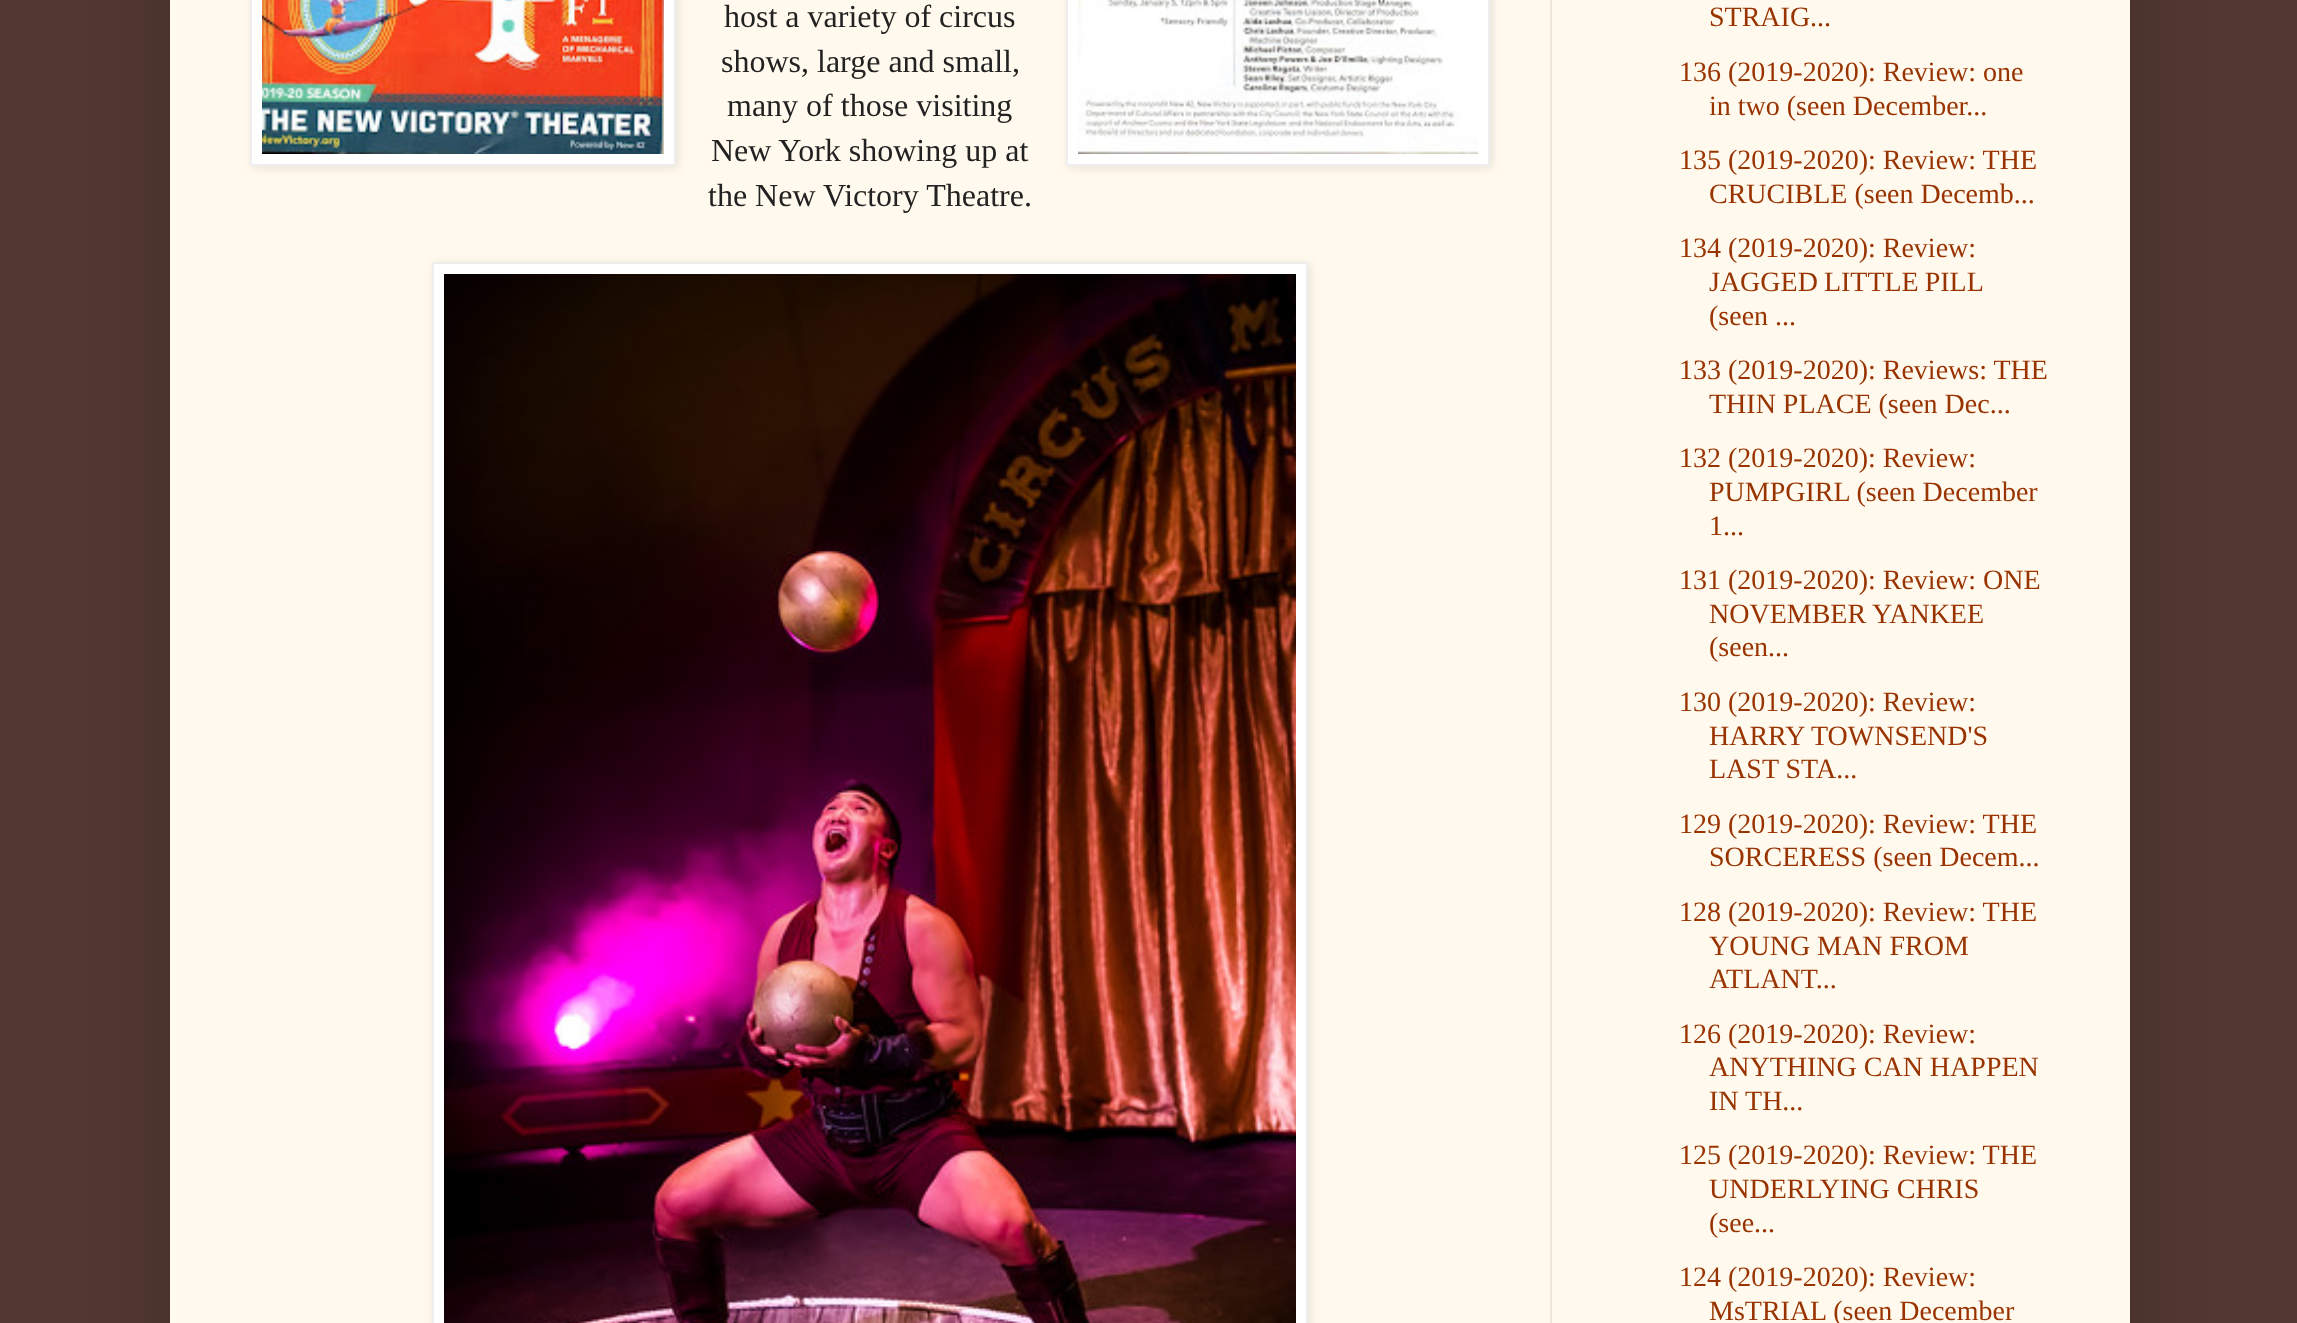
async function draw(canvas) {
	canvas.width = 2297;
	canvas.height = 1323;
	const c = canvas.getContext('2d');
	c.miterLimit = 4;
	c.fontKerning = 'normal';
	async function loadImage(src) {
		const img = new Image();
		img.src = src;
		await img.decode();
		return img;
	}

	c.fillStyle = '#513831';
	c.fillRect(0, 0, 2297, 1323);
	c.fillStyle = '#00000026';
	c.filter = 'blur(40px)';
	c.beginPath();
	c.rect(170, -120, 1960, 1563);
	c.fill();
	c.filter = 'none';
	c.fillStyle = '#fff9ee';
	c.fillRect(170, 0, 1960, 1323);
	c.fillStyle = '#eee5dd';
	c.fillRect(1550, 0, 2, 1323);
	c.fillStyle = '#0000001a';
	c.filter = 'blur(5px)';
	c.beginPath();
	c.rect(252, -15, 426, 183);
	c.fill();
	c.filter = 'none';
	c.fillStyle = '#fff';
	c.beginPath();
	c.rect(251, -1, 424, 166);
	c.fill();
	c.strokeStyle = '#eee';
	c.lineWidth = 2;
	c.stroke();
	c.drawImage(await loadImage('img1.png'), 262, 0, 402, 154);
	c.fillStyle = '#0000001a';
	c.filter = 'blur(5px)';
	c.beginPath();
	c.rect(1068, -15, 424, 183);
	c.fill();
	c.filter = 'none';
	c.fillStyle = '#fff';
	c.beginPath();
	c.rect(1067, -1, 422, 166);
	c.fill();
	c.stroke();
	c.drawImage(await loadImage('img2.png'), 1078, 0, 400, 154);
	c.font = '32px Liberation Serif';
	c.fillStyle = '#222';
	for (const [text, x, y] of [
		['host a variety of circus', 724, 27],
		['shows, large and small,', 721, 72],
		['many of those visiting', 727, 116],
		['New York showing up at', 711, 161],
		['the New Victory Theatre.', 708, 206],
	]) {
		c.fillText(text, x, y);
	}
	c.fillStyle = '#0000001a';
	c.filter = 'blur(5px)';
	c.beginPath();
	c.rect(434, 264, 876, 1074);
	c.fill();
	c.filter = 'none';
	c.fillStyle = '#fff';
	c.beginPath();
	c.rect(433, 263, 874, 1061);
	c.fill();
	c.stroke();
	c.drawImage(await loadImage('img3.png'), 444, 274, 852, 1049);
	c.font = '28px Liberation Serif';
	c.fillStyle = '#930';
	for (const [text, x, y] of [
		['STRAIG...', 1709, 26],
		['136 (2019-2020): Review: one', 1679, 81],
		['in two (seen December...', 1709, 115],
		['135 (2019-2020): Review: THE', 1679, 169],
		['CRUCIBLE (seen Decemb...', 1709, 203],
		['134 (2019-2020): Review:', 1679, 257],
	]) {
		c.fillText(text, x, y);
	}
	c.wordSpacing = '-1px';
	c.fillText('JAGGED LITTLE PILL', 1709, 291);
	c.wordSpacing = '0px';
	for (const [text, x, y] of [
		['(seen ...', 1709, 325],
		['133 (2019-2020): Reviews: THE', 1679, 379],
		['THIN PLACE (seen Dec...', 1709, 413],
		['132 (2019-2020): Review:', 1679, 467],
		['PUMPGIRL (seen December', 1709, 501],
		['1...', 1709, 535],
		['131 (2019-2020): Review: ONE', 1679, 589],
		['NOVEMBER YANKEE', 1709, 623],
		['(seen...', 1709, 656],
		['130 (2019-2020): Review:', 1679, 711],
		['HARRY TOWNSEND\'S', 1709, 745],
		['LAST STA...', 1709, 778],
		['129 (2019-2020): Review: THE', 1679, 833],
		['SORCERESS (seen Decem...', 1709, 866],
		['128 (2019-2020): Review: THE', 1679, 921],
		['YOUNG MAN FROM', 1709, 955],
		['ATLANT...', 1709, 988],
		['126 (2019-2020): Review:', 1679, 1043],
		['ANYTHING CAN HAPPEN', 1709, 1076],
		['IN TH...', 1709, 1110],
		['125 (2019-2020): Review: THE', 1679, 1164],
		['UNDERLYING CHRIS', 1709, 1198],
		['(see...', 1709, 1232],
		['124 (2019-2020): Review:', 1679, 1286],
		['MsTRIAL (seen December', 1709, 1320],
	]) {
		c.fillText(text, x, y);
	}
}

draw(document.querySelector('canvas'));
